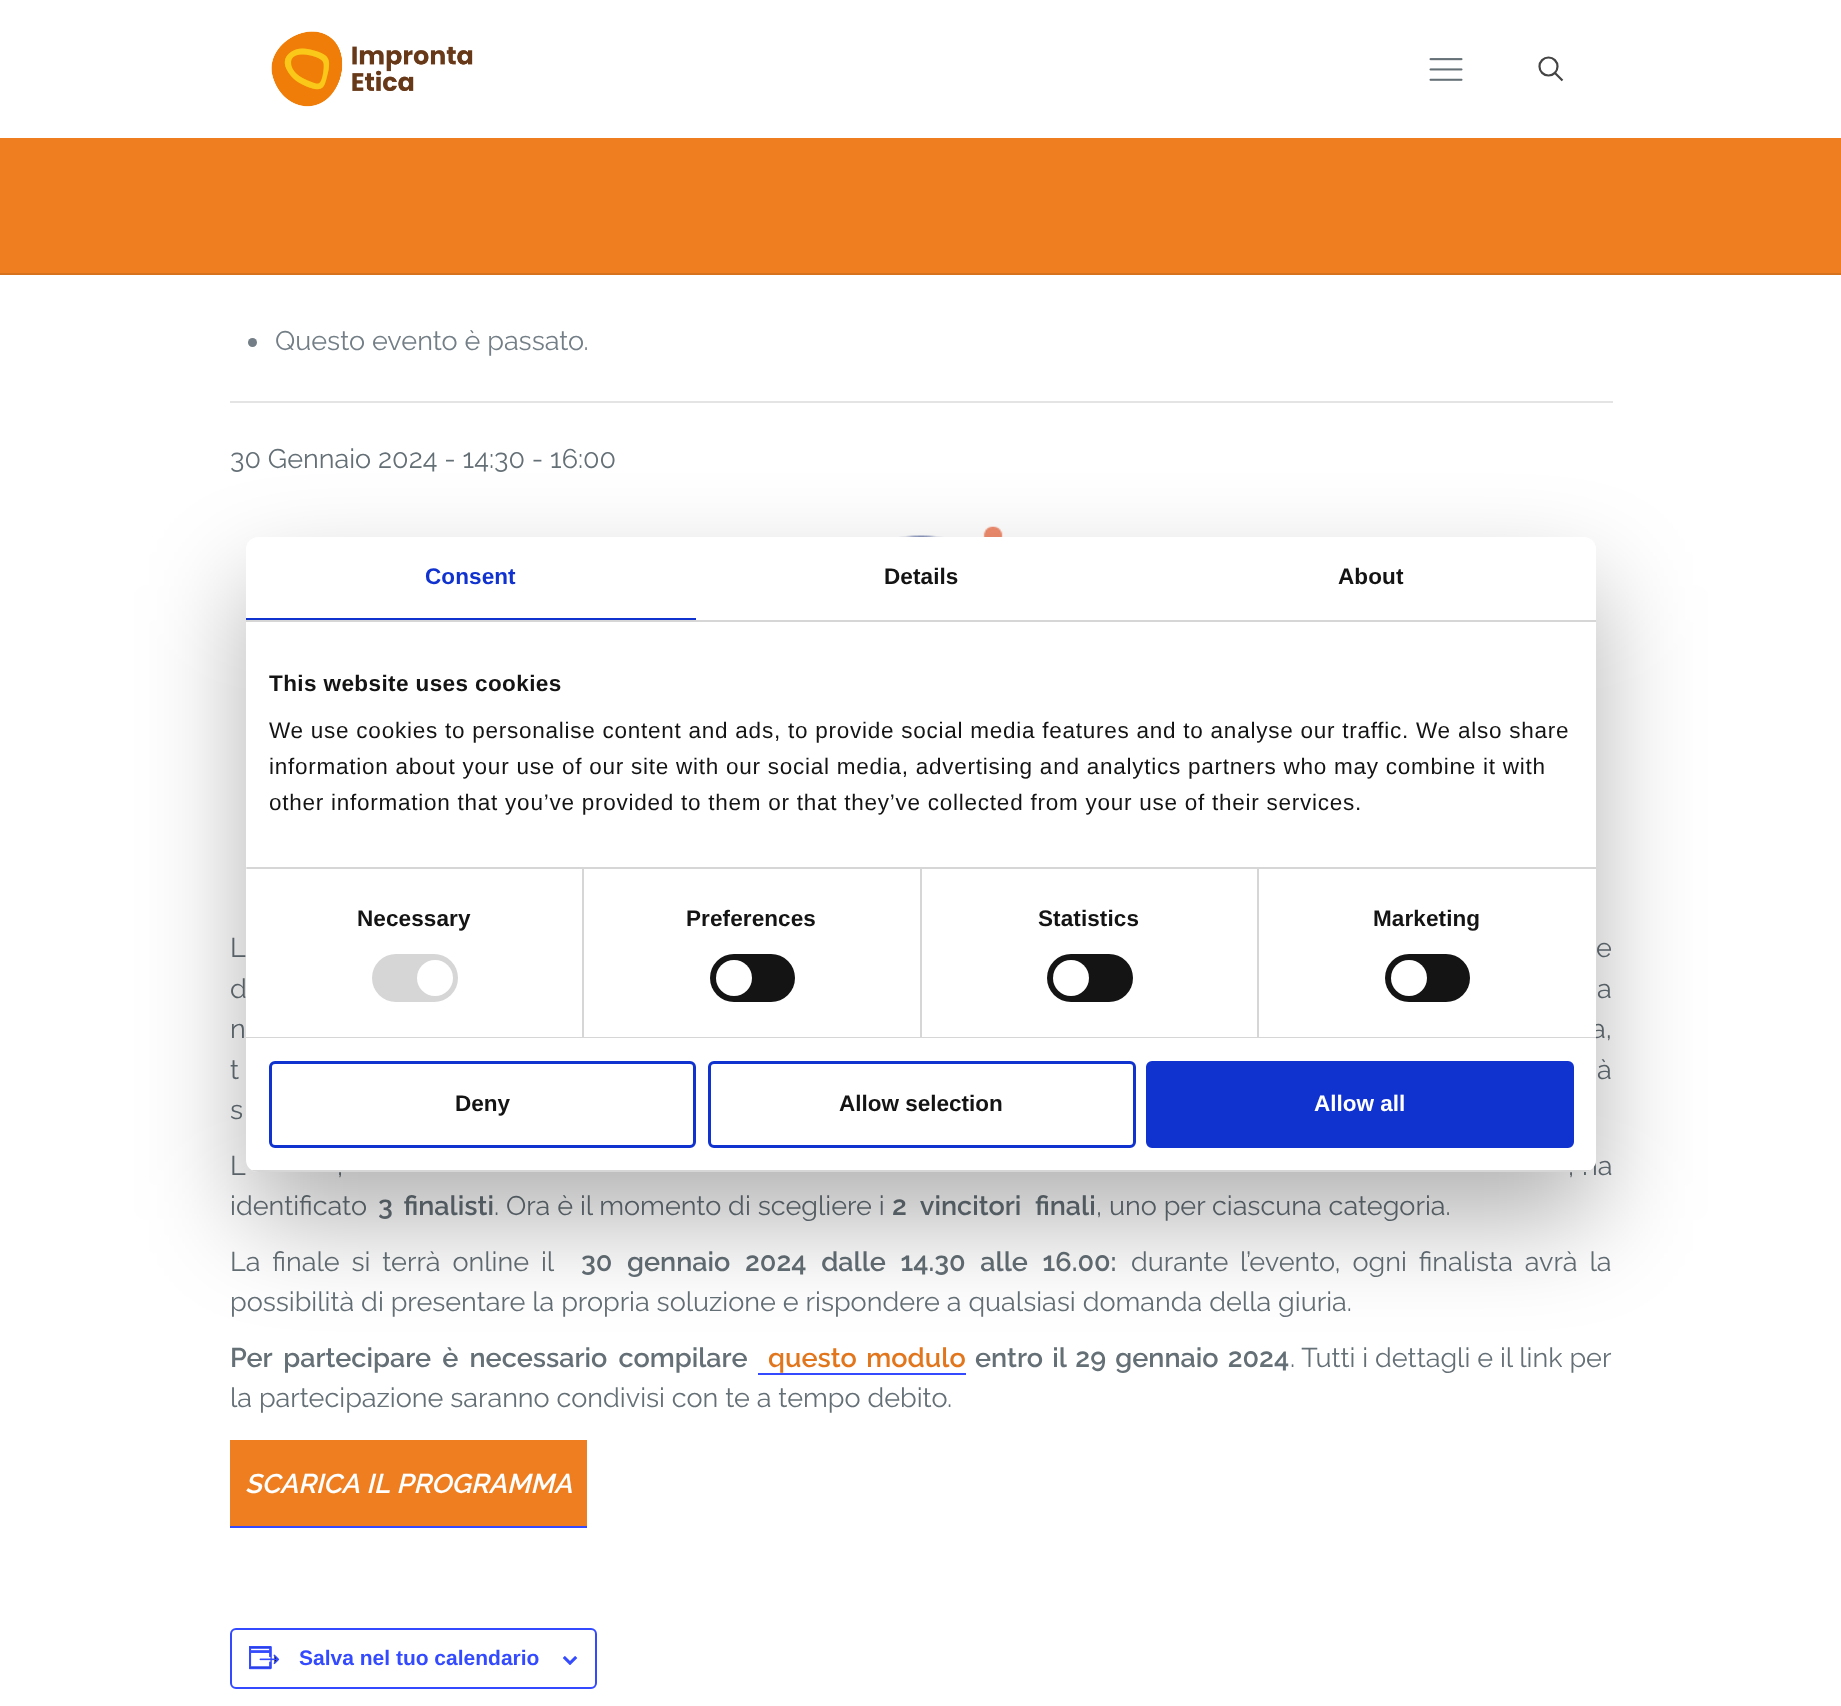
async function draw(canvas) {
	canvas.width = 1841;
	canvas.height = 1706;
	const c = canvas.getContext('2d');
	c.miterLimit = 4;
	c.fontKerning = 'normal';
	async function loadImage(src) {
		const img = new Image();
		img.src = src;
		await img.decode();
		return img;
	}

	c.fillStyle = '#fff';
	c.fillRect(0, 0, 1841, 1706);
	c.drawImage(await loadImage('img1.png'), 271, 31, 202, 76);
	c.drawImage(await loadImage('img2.png'), 1429, 58, 34, 23);
	c.beginPath();
	c.arc(1548.5, 66.5, 9, 0, 2 * Math.PI);
	c.strokeStyle = '#444';
	c.lineWidth = 2.2;
	c.stroke();
	c.beginPath();
	c.moveTo(1555, 73);
	c.lineTo(1562.5, 80.5);
	c.stroke();
	for (const [x, y, w, h, color] of [
		[0, 138, 1841, 135, '#ee7e20'],
		[0, 273, 1841, 2, '#d6711d'],
		[230, 401, 1383, 2, '#e4e4e4'],
	]) {
		c.fillStyle = color;
		c.fillRect(x, y, w, h);
	}
	c.fillStyle = '#737e86';
	c.beginPath();
	c.arc(252.5, 342.5, 4.5, 0, 2 * Math.PI);
	c.fill();
	c.font = '27px Raleway';
	c.fillText('Questo evento è passato.', 275, 350);
	c.fillStyle = '#646f76';
	c.fillText('30 Gennaio 2024 - 14:30 - 16:00', 230, 468);
	c.drawImage(await loadImage('img3.png'), 760, 526, 322, 11);
	c.fillText('L', 230, 957);
	c.wordSpacing = '1px';
	c.fillText('e', 1596, 957);
	c.wordSpacing = '2px';
	for (const [text, x, y] of [
		['d', 230, 998],
		['a', 1597, 998],
		['n', 230, 1038],
		['a,', 1591, 1038],
	]) {
		c.fillText(text, x, y);
	}
	c.wordSpacing = '8px';
	c.fillText('t', 230, 1079);
	c.fillText('à', 1597, 1079);
	c.wordSpacing = '0px';
	c.fillText('s', 230, 1119);
	c.wordSpacing = '1px';
	for (const [text, x, y] of [
		['L', 230, 1175],
		[',', 337, 1175],
		[', ha', 1568, 1175],
	]) {
		c.fillText(text, x, y);
	}
	c.wordSpacing = '0px';
	c.fillText('identificato', 230, 1215);
	c.wordSpacing = '4px';
	c.font = '600 27px Raleway';
	c.fillText('3 finalisti', 378, 1215);
	c.wordSpacing = '0px';
	c.font = '27px Raleway';
	c.fillText('. Ora è il momento di scegliere i', 494, 1215);
	c.wordSpacing = '7px';
	c.font = '600 27px Raleway';
	c.fillText('2 vincitori finali', 892, 1215);
	c.wordSpacing = '0px';
	c.font = '27px Raleway';
	c.fillText(', uno per ciascuna categoria.', 1096, 1215);
	c.wordSpacing = '5px';
	c.fillText('La finale si terrà online il', 230, 1271);
	c.wordSpacing = '8px';
	c.font = '600 27px Raleway';
	c.fillText('30 gennaio 2024 dalle 14.30 alle 16.00:', 581, 1271);
	c.wordSpacing = '5px';
	c.font = '27px Raleway';
	c.fillText('durante l’evento, ogni finalista avrà la', 1131, 1271);
	c.wordSpacing = '0px';
	c.fillText('possibilità di presentare la propria soluzione e rispondere a qualsiasi domanda della giuria.', 230, 1311);
	c.wordSpacing = '4.5px';
	c.font = '600 27px Raleway';
	c.fillText('Per partecipare è necessario compilare', 230, 1367);
	c.wordSpacing = '3px';
	c.fillStyle = '#e2761d';
	c.fillText('questo modulo', 768, 1367);
	c.fillStyle = '#334aff';
	c.fillRect(758, 1373, 208, 2);
	c.wordSpacing = '2.5px';
	c.fillStyle = '#646f76';
	c.fillText('entro il 29 gennaio 2024', 975, 1367);
	c.wordSpacing = '0px';
	c.font = '27px Raleway';
	c.fillText('. Tutti i dettagli e il link per', 1290, 1367);
	c.fillText('la partecipazione saranno condivisi con te a tempo debito.', 230, 1407);
	c.fillStyle = '#ee7e1f';
	c.fillRect(230, 1440, 357, 86);
	c.fillStyle = '#334aff';
	c.fillRect(230, 1526, 357, 2);
	c.wordSpacing = '1px';
	c.font = 'italic 600 27px Raleway';
	c.fillStyle = '#fff';
	c.fillText('SCARICA IL PROGRAMMA', 245, 1493);
	c.beginPath();
	c.roundRect(231, 1629, 365, 59, 5);
	c.strokeStyle = '#334aff';
	c.lineWidth = 2;
	c.stroke();
	c.drawImage(await loadImage('img4.png'), 249, 1646, 31, 24);
	c.wordSpacing = '0px';
	c.font = 'bold 21px Liberation Sans';
	c.fillStyle = '#334aff';
	c.fillText('Salva nel tuo calendario', 299, 1665);
	c.drawImage(await loadImage('img5.png'), 563, 1656, 15, 9);
	c.fillStyle = '#0000004d';
	c.filter = 'blur(51px)';
	c.beginPath();
	c.roundRect(246, 585, 1350, 635, 12);
	c.fill();
	c.filter = 'none';
	c.fillStyle = '#fff';
	c.beginPath();
	c.roundRect(246, 537, 1350, 635, 12);
	c.fill();
	c.fillStyle = '#d6d6d6';
	c.fillRect(246, 620, 1350, 2);
	c.fillStyle = '#1032cf';
	c.fillRect(246, 618, 450, 2);
	c.letterSpacing = '0.1px';
	c.font = 'bold 22.5px Liberation Sans';
	c.fillText('Consent', 425, 584);
	c.fillStyle = '#141414';
	c.fillText('Details', 884, 584);
	c.fillText('About', 1338, 584);
	c.fillStyle = '#d6d6d6';
	c.fillRect(246, 867, 1350, 2);
	c.letterSpacing = '0.4px';
	c.fillStyle = '#141414';
	c.fillText('This website uses cookies', 269, 691);
	c.letterSpacing = '0.75px';
	c.font = '22.5px Liberation Sans';
	for (const [text, x, y] of [
		['We use cookies to personalise content and ads, to provide social media features and to analyse our traffic. We also share', 269, 738],
		['information about your use of our site with our social media, advertising and analytics partners who may combine it with', 269, 774],
		['other information that you’ve provided to them or that they’ve collected from your use of their services.', 269, 810],
	]) {
		c.fillText(text, x, y);
	}
	for (const [x, y, w, h, color] of [
		[246, 1037, 1350, 1, '#d6d6d6'],
		[246, 867, 1, 2, '#e5e5e5'],
		[582, 869, 2, 168, '#d6d6d6'],
	]) {
		c.fillStyle = color;
		c.fillRect(x, y, w, h);
	}
	c.letterSpacing = '0.1px';
	c.font = 'bold 22.5px Liberation Sans';
	c.fillStyle = '#141414';
	c.fillText('Necessary', 357, 926);
	c.fillStyle = '#d6d6d6';
	c.beginPath();
	c.roundRect(372, 954, 86, 48, 24);
	c.fill();
	c.fillStyle = '#fff';
	c.beginPath();
	c.arc(435, 978, 18, 0, 2 * Math.PI);
	c.fill();
	c.fillStyle = '#d6d6d6';
	c.fillRect(920, 869, 2, 168);
	c.fillStyle = '#141414';
	c.fillText('Preferences', 686, 926);
	c.beginPath();
	c.roundRect(710, 954, 85, 48, 24);
	c.fill();
	c.fillStyle = '#fff';
	c.beginPath();
	c.arc(734, 978, 18, 0, 2 * Math.PI);
	c.fill();
	c.fillStyle = '#d6d6d6';
	c.fillRect(1257, 869, 2, 168);
	c.fillStyle = '#141414';
	c.fillText('Statistics', 1038, 926);
	c.beginPath();
	c.roundRect(1047, 954, 86, 48, 24);
	c.fill();
	c.fillStyle = '#fff';
	c.beginPath();
	c.arc(1071, 978, 18, 0, 2 * Math.PI);
	c.fill();
	c.fillStyle = '#141414';
	c.fillText('Marketing', 1373, 926);
	c.beginPath();
	c.roundRect(1385, 954, 85, 48, 24);
	c.fill();
	c.fillStyle = '#fff';
	c.beginPath();
	c.arc(1409, 978, 18, 0, 2 * Math.PI);
	c.fill();
	c.save();
	c.beginPath();
	c.roundRect(246, 537, 1350, 635, 12);
	c.clip();
	c.fillStyle = '#d6d6d6';
	c.fillRect(246, 1170, 1350, 2);
	c.restore();
	c.beginPath();
	c.roundRect(270.5, 1062.5, 424, 84, 4.5);
	c.strokeStyle = '#1032cf';
	c.lineWidth = 3;
	c.stroke();
	c.letterSpacing = '0px';
	c.fillStyle = '#141414';
	c.fillText('Deny', 455, 1111);
	c.beginPath();
	c.roundRect(709.5, 1062.5, 425, 84, 4.5);
	c.stroke();
	c.fillText('Allow selection', 839, 1111);
	c.fillStyle = '#1032cf';
	c.beginPath();
	c.roundRect(1147.5, 1062.5, 425, 84, 4.5);
	c.fill();
	c.stroke();
	c.fillStyle = '#fff';
	c.fillText('Allow all', 1314, 1111);
}

draw(document.querySelector('canvas'));
